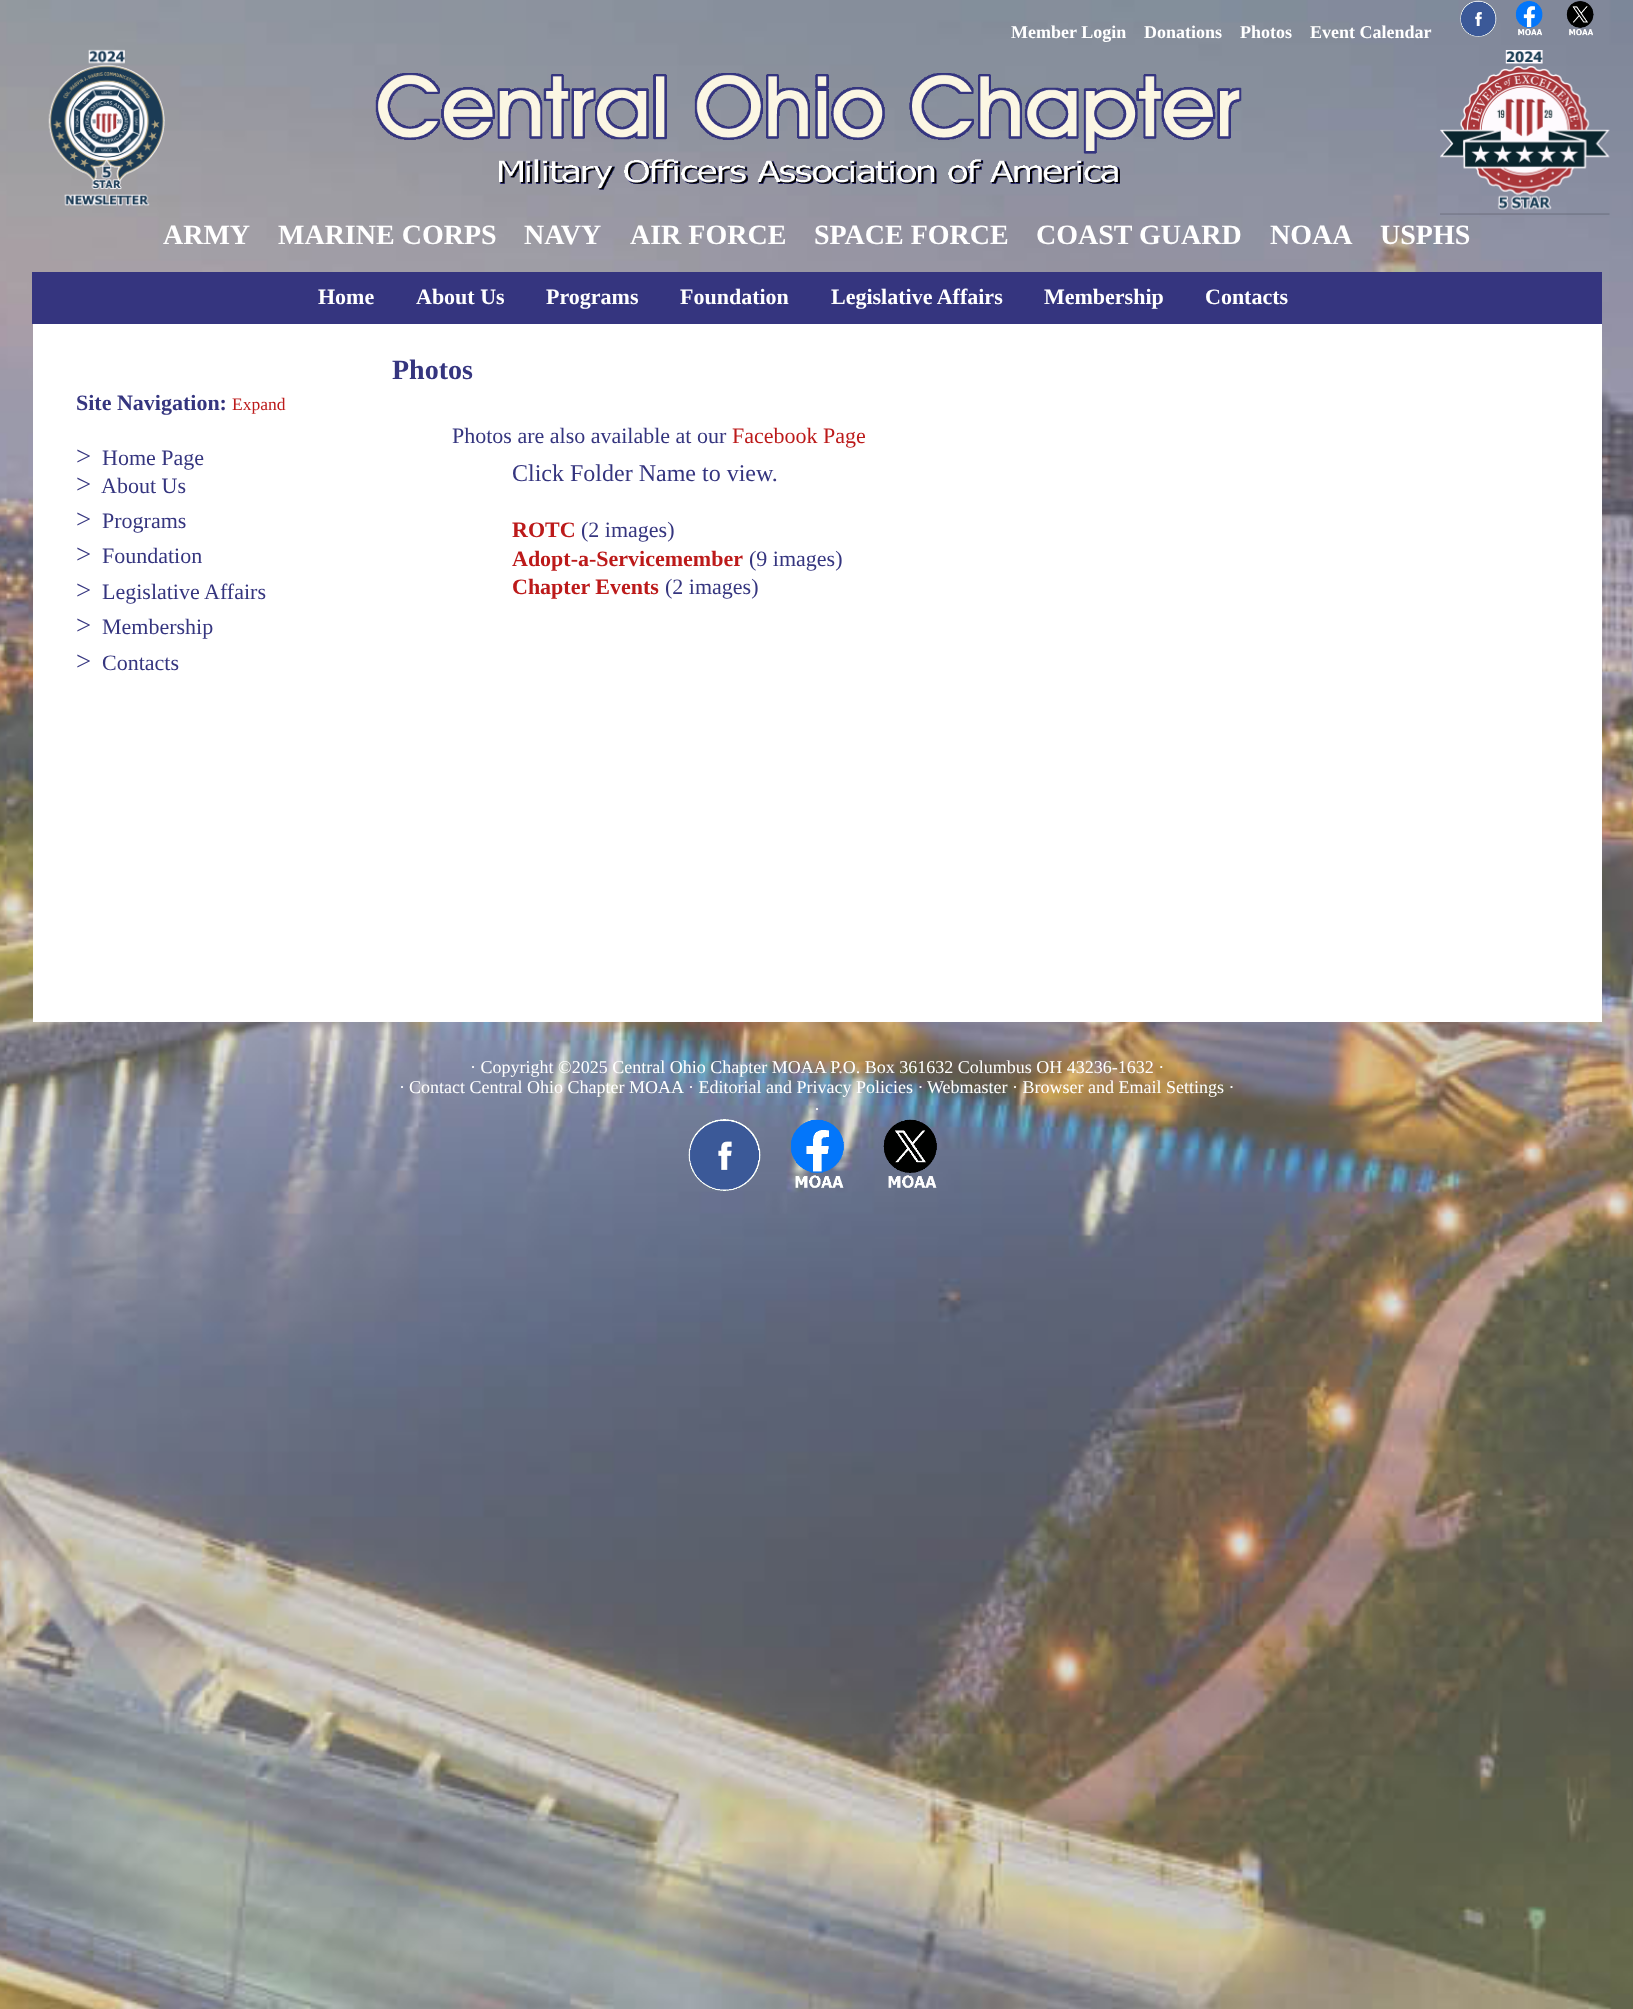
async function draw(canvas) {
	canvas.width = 1633;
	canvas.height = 2009;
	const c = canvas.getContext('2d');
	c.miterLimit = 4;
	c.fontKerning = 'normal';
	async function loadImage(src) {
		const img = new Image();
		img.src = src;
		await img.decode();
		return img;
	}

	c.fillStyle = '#fff';
	c.fillRect(0, 0, 1633, 2009);
	c.drawImage(await loadImage('img1.png'), 0, 0, 1633, 2009);
	c.font = 'bold 18px Liberation Serif';
	for (const [text, x, y] of [
		['Member Login', 1011, 38],
		['Donations', 1144, 38],
		['Photos', 1240, 38],
		['Event Calendar', 1310, 38],
	]) {
		c.fillText(text, x, y);
	}
	c.drawImage(await loadImage('img2.png'), 1460, 0, 37, 37);
	c.drawImage(await loadImage('img3.png'), 1515, 0, 28, 36);
	c.drawImage(await loadImage('img4.png'), 1566, 0, 28, 36);
	c.drawImage(await loadImage('img5.png'), 48, 49, 117, 157);
	c.drawImage(await loadImage('img6.png'), 375, 73, 867, 117);
	c.drawImage(await loadImage('img7.png'), 1440, 50, 170, 165);
	c.font = 'bold 28px Liberation Serif';
	for (const [text, x, y] of [
		['ARMY', 163, 244],
		['MARINE CORPS', 278, 244],
		['NAVY', 524, 244],
		['AIR FORCE', 630, 244],
		['SPACE FORCE', 814, 244],
		['COAST GUARD', 1036, 244],
		['NOAA', 1270, 244],
		['USPHS', 1380, 244],
	]) {
		c.fillText(text, x, y);
	}
	c.fillStyle = '#35357f';
	c.fillRect(32, 272, 1570, 52);
	c.font = 'bold 22px Liberation Serif';
	c.fillStyle = '#fff';
	for (const [text, x, y] of [
		['Home', 318, 304],
		['About Us', 416, 304],
		['Programs', 546, 304],
		['Foundation', 680, 304],
		['Legislative Affairs', 831, 304],
		['Membership', 1044, 304],
		['Contacts', 1205, 304],
	]) {
		c.fillText(text, x, y);
	}
	c.fillRect(33, 324, 1569, 698);
	c.fillStyle = '#35357f';
	c.fillText('Site Navigation:', 76, 410);
	c.font = '17.5px Liberation Serif';
	c.fillStyle = '#bc1a1a';
	c.fillText('Expand', 232, 410);
	c.font = '27px Liberation Serif';
	c.fillStyle = '#35357f';
	c.fillText('>', 76, 465);
	c.font = '22px Liberation Serif';
	c.fillText('Home Page', 102, 465);
	c.font = '27px Liberation Serif';
	c.fillText('>', 76, 493);
	c.font = '22px Liberation Serif';
	c.fillText('About Us', 101, 493);
	c.font = '27px Liberation Serif';
	c.fillText('>', 76, 528);
	c.font = '22px Liberation Serif';
	c.fillText('Programs', 102, 528);
	c.font = '27px Liberation Serif';
	c.fillText('>', 76, 563);
	c.font = '22px Liberation Serif';
	c.fillText('Foundation', 102, 563);
	c.font = '27px Liberation Serif';
	c.fillText('>', 76, 599);
	c.font = '22px Liberation Serif';
	c.fillText('Legislative Affairs', 102, 599);
	c.font = '27px Liberation Serif';
	c.fillText('>', 76, 634);
	c.font = '22px Liberation Serif';
	c.fillText('Membership', 102, 634);
	c.font = '27px Liberation Serif';
	c.fillText('>', 76, 670);
	c.font = '22px Liberation Serif';
	c.fillText('Contacts', 102, 670);
	c.font = 'bold 28px Liberation Serif';
	c.fillText('Photos', 392, 379);
	c.font = '22px Liberation Serif';
	c.fillText('Photos are also available at our', 452, 443);
	c.fillStyle = '#bc1a1a';
	c.fillText('Facebook Page', 732, 443);
	c.font = '24px Liberation Serif';
	c.fillStyle = '#35357f';
	c.fillText('Click Folder Name to view.', 512, 481);
	c.font = 'bold 22px Liberation Serif';
	c.fillStyle = '#bc1a1a';
	c.fillText('ROTC', 512, 537);
	c.font = '22px Liberation Serif';
	c.fillStyle = '#35357f';
	c.fillText('(2 images)', 581, 537);
	c.font = 'bold 22px Liberation Serif';
	c.fillStyle = '#bc1a1a';
	c.fillText('Adopt-a-Servicemember', 512, 566);
	c.font = '22px Liberation Serif';
	c.fillStyle = '#35357f';
	c.fillText('(9 images)', 749, 566);
	c.font = 'bold 22px Liberation Serif';
	c.fillStyle = '#bc1a1a';
	c.fillText('Chapter Events', 512, 594);
	c.font = '22px Liberation Serif';
	c.fillStyle = '#35357f';
	c.fillText('(2 images)', 665, 594);
	c.font = '18px Liberation Serif';
	c.fillStyle = '#fff';
	for (const [text, x, y] of [
		['· Copyright ©2025 Central Ohio Chapter MOAA P.O. Box 361632 Columbus OH 43236-1632 ·', 470, 1073],
		['·', 399, 1093],
		['Contact Central Ohio Chapter MOAA', 409, 1093],
		['· Editorial and Privacy Policies ·', 688, 1093],
		['Webmaster · Browser and Email Settings ·', 927, 1093],
		['·', 814, 1115],
	]) {
		c.fillText(text, x, y);
	}
	c.drawImage(await loadImage('img8.png'), 688, 1119, 73, 72);
	c.drawImage(await loadImage('img9.png'), 791, 1119, 53, 69);
	c.drawImage(await loadImage('img10.png'), 883, 1119, 54, 69);
}

draw(document.querySelector('canvas'));
